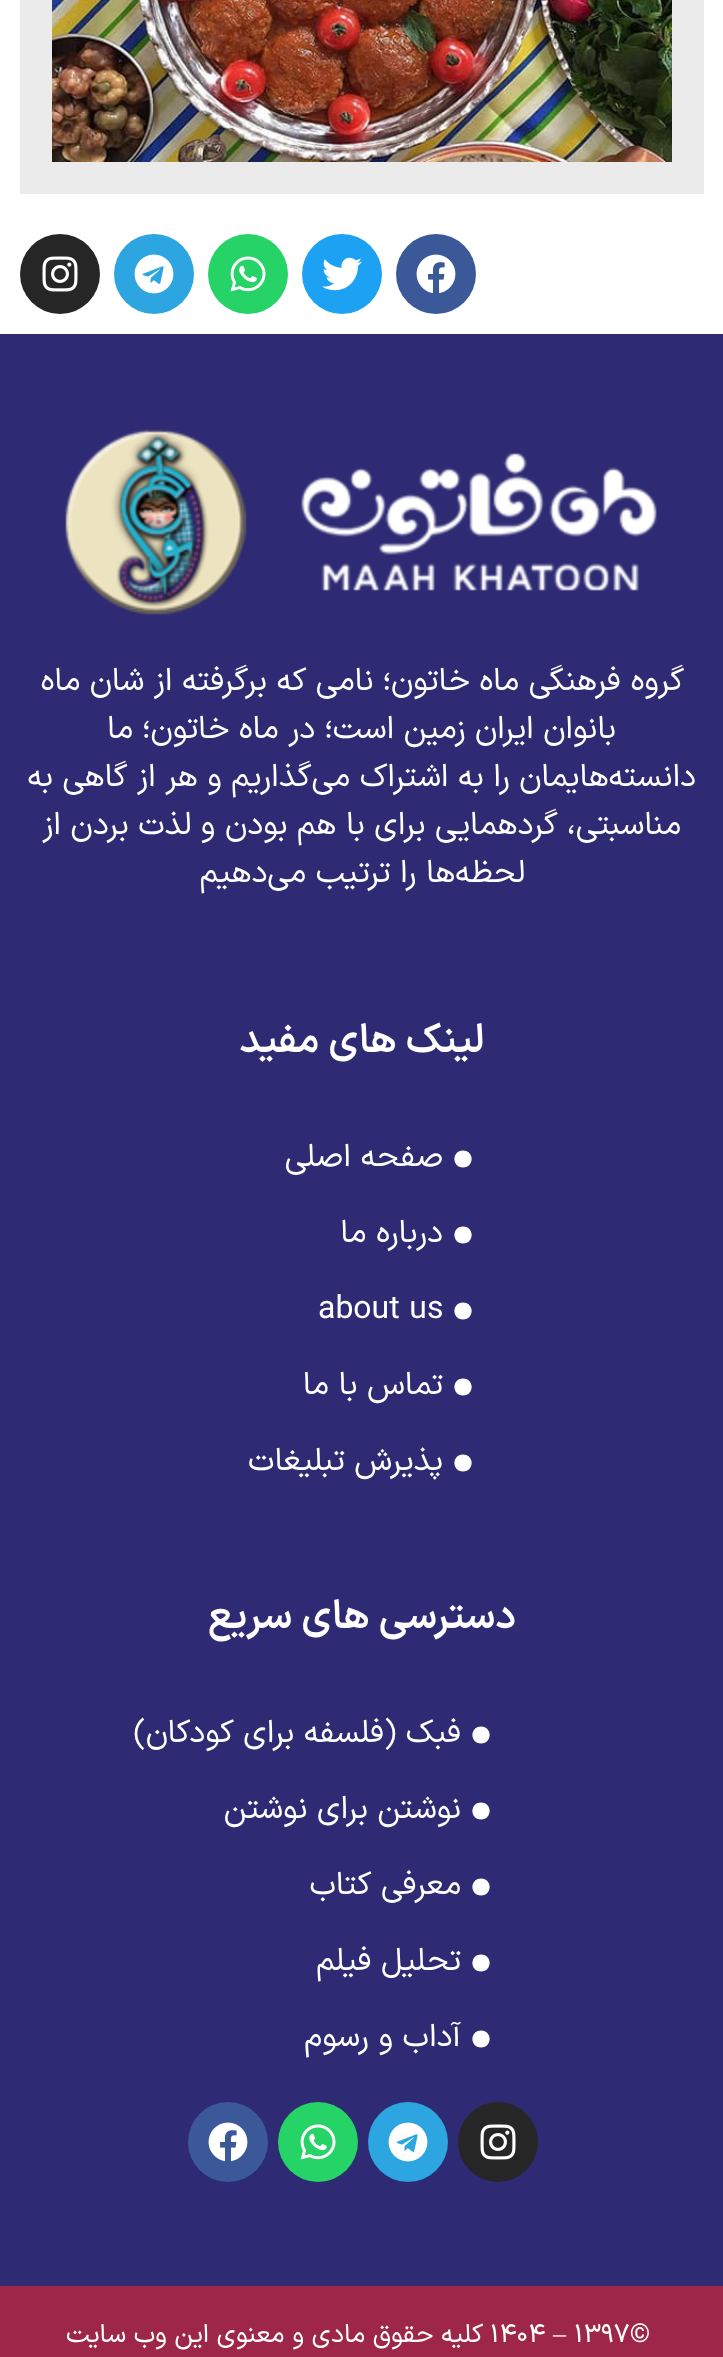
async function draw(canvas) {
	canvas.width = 723;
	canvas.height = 2357;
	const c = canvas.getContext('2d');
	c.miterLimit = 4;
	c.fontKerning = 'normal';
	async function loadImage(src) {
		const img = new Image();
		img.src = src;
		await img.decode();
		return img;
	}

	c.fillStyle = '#fff';
	c.fillRect(0, 0, 723, 2357);
	c.fillStyle = '#ebebeb';
	c.fillRect(20, 0, 684, 194);
	c.drawImage(await loadImage('img1.png'), 52, 0, 620, 162);
	c.fillStyle = '#3b5998';
	c.beginPath();
	c.arc(436, 274, 40, 0, 2 * Math.PI);
	c.fill();
	c.drawImage(await loadImage('img2.png'), 416, 254, 40, 40);
	c.fillStyle = '#1da1f2';
	c.beginPath();
	c.arc(342, 274, 40, 0, 2 * Math.PI);
	c.fill();
	c.drawImage(await loadImage('img3.png'), 322, 257, 40, 34);
	c.fillStyle = '#25d366';
	c.beginPath();
	c.arc(248, 274, 40, 0, 2 * Math.PI);
	c.fill();
	c.drawImage(await loadImage('img4.png'), 230, 256, 36, 36);
	c.fillStyle = '#2ca5e0';
	c.beginPath();
	c.arc(154, 274, 40, 0, 2 * Math.PI);
	c.fill();
	c.drawImage(await loadImage('img5.png'), 134, 254, 40, 40);
	c.fillStyle = '#262626';
	c.beginPath();
	c.arc(60, 274, 40, 0, 2 * Math.PI);
	c.fill();
	c.drawImage(await loadImage('img6.png'), 42, 256, 36, 36);
	c.fillStyle = '#2e2a73';
	c.fillRect(0, 334, 723, 1952);
	c.drawImage(await loadImage('img7.png'), 65, 429, 592, 186);
	c.direction = 'rtl';
	c.font = '32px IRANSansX';
	c.fillStyle = '#fff';
	for (const [text, x, y] of [
		['گروه فرهنگی ماه خاتون؛ نامی که برگرفته از شان ماه', 684, 690],
		['بانوان ایران زمین است؛ در ماه خاتون؛ ما', 616, 738],
		['دانسته‌هایمان را به اشتراک می‌گذاریم و هر از گاهی به', 696, 786],
		['مناسبتی، گردهمایی برای با هم بودن و لذت بردن از', 681, 834],
		['لحظه‌ها را ترتیب می‌دهیم', 525, 882],
	]) {
		c.fillText(text, x, y);
	}
	c.font = '600 40px IRANSansX';
	c.fillText('لینک های مفید', 484, 1052);
	c.beginPath();
	c.moveTo(463, 1150.5);
	c.bezierCurveTo(451.5, 1150.5, 451.5, 1167.5, 463, 1167.5);
	c.bezierCurveTo(474.5, 1167.5, 474.5, 1150.5, 463, 1150.5);
	c.closePath();
	c.fill();
	c.font = '32px IRANSansX';
	c.fillText('صفحه اصلی', 443, 1166);
	c.beginPath();
	c.moveTo(463, 1226.5);
	c.bezierCurveTo(451.5, 1226.5, 451.5, 1243.5, 463, 1243.5);
	c.bezierCurveTo(474.5, 1243.5, 474.5, 1226.5, 463, 1226.5);
	c.closePath();
	c.fill();
	c.fillText('درباره ما', 443, 1242);
	c.beginPath();
	c.moveTo(463, 1302.5);
	c.bezierCurveTo(451.5, 1302.5, 451.5, 1319.5, 463, 1319.5);
	c.bezierCurveTo(474.5, 1319.5, 474.5, 1302.5, 463, 1302.5);
	c.closePath();
	c.fill();
	c.direction = 'ltr';
	c.fillText('about us', 318, 1318);
	c.beginPath();
	c.moveTo(463, 1378.5);
	c.bezierCurveTo(451.5, 1378.5, 451.5, 1395.5, 463, 1395.5);
	c.bezierCurveTo(474.5, 1395.5, 474.5, 1378.5, 463, 1378.5);
	c.closePath();
	c.fill();
	c.direction = 'rtl';
	c.fillText('تماس با ما', 443, 1394);
	c.beginPath();
	c.moveTo(463, 1454.5);
	c.bezierCurveTo(451.5, 1454.5, 451.5, 1471.5, 463, 1471.5);
	c.bezierCurveTo(474.5, 1471.5, 474.5, 1454.5, 463, 1454.5);
	c.closePath();
	c.fill();
	c.fillText('پذیرش تبلیغات', 443, 1470);
	c.font = '600 40px IRANSansX';
	c.fillText('دسترسی های سریع', 516, 1628);
	c.beginPath();
	c.moveTo(481, 1726.5);
	c.bezierCurveTo(469.5, 1726.5, 469.5, 1743.5, 481, 1743.5);
	c.bezierCurveTo(492.5, 1743.5, 492.5, 1726.5, 481, 1726.5);
	c.closePath();
	c.fill();
	c.font = '32px IRANSansX';
	c.fillText('فبک (فلسفه برای کودکان)', 461, 1742);
	c.beginPath();
	c.moveTo(481, 1802.5);
	c.bezierCurveTo(469.5, 1802.5, 469.5, 1819.5, 481, 1819.5);
	c.bezierCurveTo(492.5, 1819.5, 492.5, 1802.5, 481, 1802.5);
	c.closePath();
	c.fill();
	c.fillText('نوشتن برای نوشتن', 461, 1818);
	c.beginPath();
	c.moveTo(481, 1878.5);
	c.bezierCurveTo(469.5, 1878.5, 469.5, 1895.5, 481, 1895.5);
	c.bezierCurveTo(492.5, 1895.5, 492.5, 1878.5, 481, 1878.5);
	c.closePath();
	c.fill();
	c.fillText('معرفی کتاب', 461, 1894);
	c.beginPath();
	c.moveTo(481, 1954.5);
	c.bezierCurveTo(469.5, 1954.5, 469.5, 1971.5, 481, 1971.5);
	c.bezierCurveTo(492.5, 1971.5, 492.5, 1954.5, 481, 1954.5);
	c.closePath();
	c.fill();
	c.fillText('تحلیل فیلم', 461, 1970);
	c.beginPath();
	c.moveTo(481, 2030.5);
	c.bezierCurveTo(469.5, 2030.5, 469.5, 2047.5, 481, 2047.5);
	c.bezierCurveTo(492.5, 2047.5, 492.5, 2030.5, 481, 2030.5);
	c.closePath();
	c.fill();
	c.fillText('آداب و رسوم', 461, 2046);
	c.fillStyle = '#262626';
	c.beginPath();
	c.arc(498, 2142, 40, 0, 2 * Math.PI);
	c.fill();
	c.drawImage(await loadImage('img6.png'), 480, 2124, 36, 36);
	c.fillStyle = '#2ca5e0';
	c.beginPath();
	c.arc(408, 2142, 40, 0, 2 * Math.PI);
	c.fill();
	c.drawImage(await loadImage('img5.png'), 388, 2122, 40, 40);
	c.fillStyle = '#25d366';
	c.beginPath();
	c.arc(318, 2142, 40, 0, 2 * Math.PI);
	c.fill();
	c.drawImage(await loadImage('img4.png'), 300, 2124, 36, 36);
	c.fillStyle = '#3b5998';
	c.beginPath();
	c.arc(228, 2142, 40, 0, 2 * Math.PI);
	c.fill();
	c.drawImage(await loadImage('img2.png'), 208, 2122, 40, 40);
	c.fillStyle = '#9e2648';
	c.fillRect(0, 2286, 723, 71);
	c.direction = 'ltr';
	c.font = '26px IRANSansX';
	c.fillStyle = '#fff';
	c.fillText('۱۳۹۷©', 574, 2342);
	c.font = '26px Liberation Serif';
	c.fillText('–', 553, 2342);
	c.font = '26px IRANSansX';
	c.fillText('۱۴۰۴', 490, 2342);
	c.direction = 'rtl';
	c.fillText('کلیه حقوق مادی و معنوی این وب سایت', 483, 2342);
}

draw(document.querySelector('canvas'));
